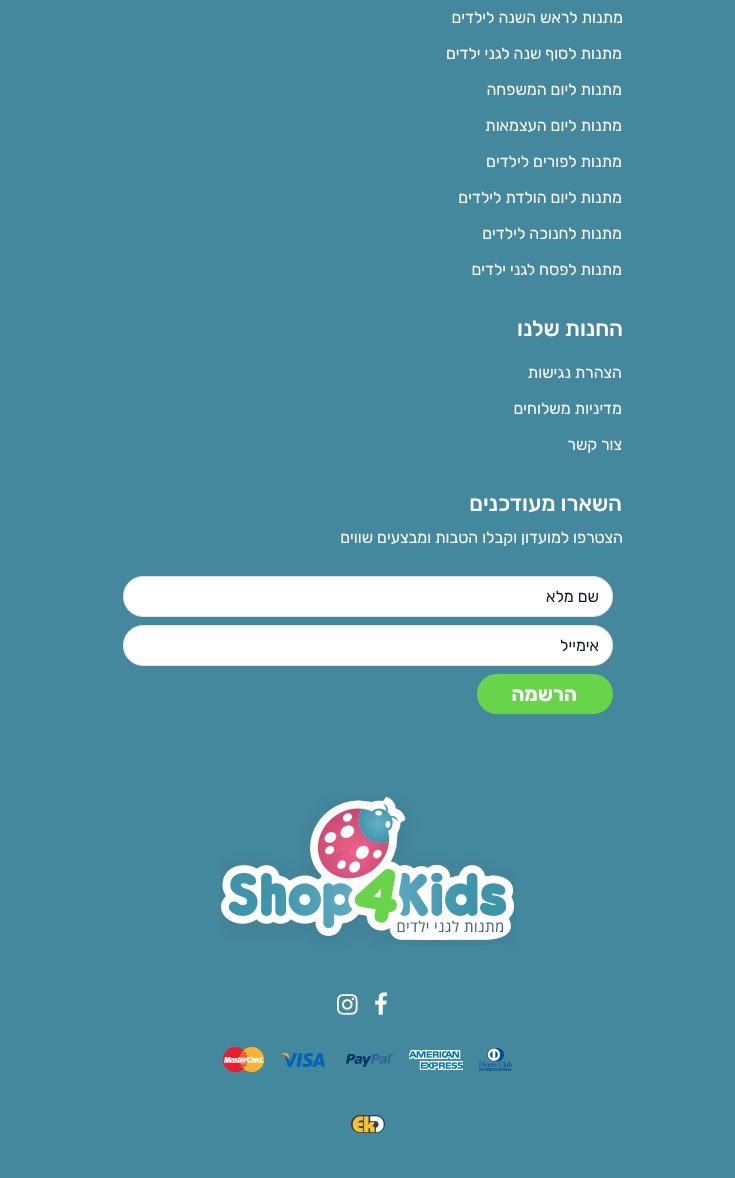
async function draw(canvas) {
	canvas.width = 735;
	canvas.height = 1178;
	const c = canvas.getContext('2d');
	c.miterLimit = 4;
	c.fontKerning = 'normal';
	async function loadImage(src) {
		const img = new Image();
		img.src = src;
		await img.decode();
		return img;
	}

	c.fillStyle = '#44889d';
	c.fillRect(0, 0, 735, 1178);
	c.direction = 'rtl';
	c.font = '16px Rubik';
	c.fillStyle = '#fff';
	for (const [text, x, y] of [
		['מתנות לראש השנה לילדים', 623, 23],
		['מתנות לסוף שנה לגני ילדים', 622, 59],
		['מתנות ליום המשפחה', 622, 95],
		['מתנות ליום העצמאות', 622, 131],
		['מתנות לפורים לילדים', 622, 167],
		['מתנות ליום הולדת לילדים', 622, 203],
		['מתנות לחנוכה לילדים', 622, 239],
		['מתנות לפסח לגני ילדים', 622, 275],
	]) {
		c.fillText(text, x, y);
	}
	c.font = '500 22px Rubik';
	c.fillText('החנות שלנו', 623, 336);
	c.font = '16px Rubik';
	for (const [text, x, y] of [
		['הצהרת נגישות', 622, 378],
		['מדיניות משלוחים', 622, 414],
		['צור קשר', 622, 450],
	]) {
		c.fillText(text, x, y);
	}
	c.font = '500 22px Rubik';
	c.fillText('השארו מעודכנים', 622, 511);
	c.font = '16px Rubik';
	c.fillText('הצטרפו למועדון וקבלו הטבות ומבצעים שווים', 623, 543);
	c.beginPath();
	c.roundRect(123.5, 576.5, 489, 40, 19.5);
	c.fill();
	c.strokeStyle = '#e1e1e1';
	c.stroke();
	c.fillStyle = '#0c1a2e';
	c.fillText('שם מלא', 599, 602);
	c.fillStyle = '#fff';
	c.beginPath();
	c.roundRect(123.5, 625.5, 489, 40, 19.5);
	c.fill();
	c.stroke();
	c.fillStyle = '#0c1a2e';
	c.fillText('אימייל', 599, 651);
	c.fillStyle = '#67d449';
	c.beginPath();
	c.roundRect(477, 674, 136, 40, 20);
	c.fill();
	c.font = 'bold 20px Rubik';
	c.fillStyle = '#fff';
	c.fillText('הרשמה', 577, 701);
	c.drawImage(await loadImage('img1.png'), 220, 797, 296, 149);
	c.drawImage(await loadImage('img2.png'), 375, 992, 12, 23);
	c.drawImage(await loadImage('img3.png'), 337, 994, 21, 21);
	c.drawImage(await loadImage('img4.png'), 223, 1047, 289, 25);
	c.drawImage(await loadImage('img5.png'), 351, 1115, 34, 18);
}

draw(document.querySelector('canvas'));
